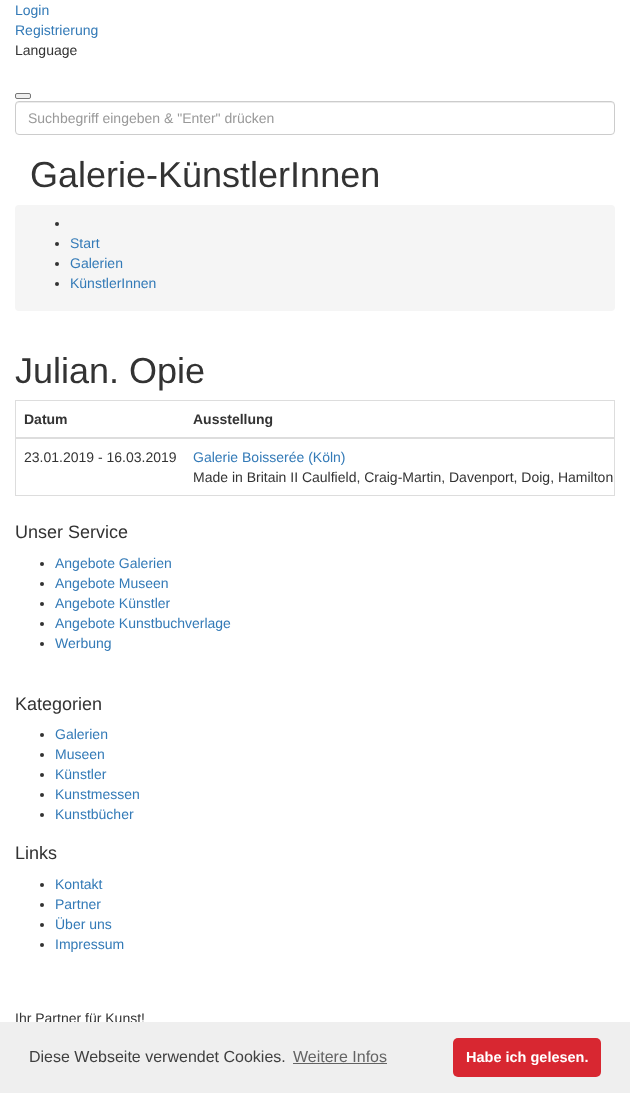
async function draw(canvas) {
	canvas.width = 630;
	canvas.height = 1093;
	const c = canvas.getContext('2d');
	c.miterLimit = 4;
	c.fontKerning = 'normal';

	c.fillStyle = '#fff';
	c.fillRect(0, 0, 630, 1093);
	c.font = '14px Liberation Sans';
	c.fillStyle = '#337ab7';
	c.fillText('Login', 15, 15);
	c.fillText('Registrierung', 15, 35);
	c.fillStyle = '#333';
	c.fillText('Language', 15, 55);
	c.fillStyle = '#efefef';
	c.beginPath();
	c.roundRect(15.5, 93.5, 15, 5, 1.5);
	c.fill();
	c.strokeStyle = '#767676';
	c.stroke();
	c.fillStyle = '#ececec';
	c.beginPath();
	c.moveTo(19, 103);
	c.lineTo(611, 103);
	c.bezierCurveTo(613, 103, 614, 104, 614, 106);
	c.lineTo(614, 105);
	c.bezierCurveTo(614, 103, 613, 102, 611, 102);
	c.lineTo(19, 102);
	c.bezierCurveTo(17, 102, 16, 103, 16, 105);
	c.lineTo(16, 106);
	c.bezierCurveTo(16, 104, 17, 103, 19, 103);
	c.closePath();
	c.fill();
	c.beginPath();
	c.roundRect(15.5, 101.5, 599, 33, 3.5);
	c.strokeStyle = '#ccc';
	c.stroke();
	c.fillStyle = '#999';
	c.fillText('Suchbegriff eingeben & "Enter" drücken', 28, 123);
	c.font = '36px Liberation Sans';
	c.fillStyle = '#333';
	c.fillText('Galerie-KünstlerInnen', 30, 187);
	c.fillStyle = '#f5f5f5';
	c.beginPath();
	c.roundRect(15, 205, 600, 106, 4);
	c.fill();
	c.fillStyle = '#333';
	c.beginPath();
	c.arc(57, 224, 2, 0, 2 * Math.PI);
	c.fill();
	c.beginPath();
	c.arc(57, 244, 2, 0, 2 * Math.PI);
	c.fill();
	c.font = '14px Liberation Sans';
	c.fillStyle = '#337ab7';
	c.fillText('Start', 70, 248);
	c.fillStyle = '#333';
	c.beginPath();
	c.arc(57, 264, 2, 0, 2 * Math.PI);
	c.fill();
	c.fillStyle = '#337ab7';
	c.fillText('Galerien', 70, 268);
	c.fillStyle = '#333';
	c.beginPath();
	c.arc(57, 284, 2, 0, 2 * Math.PI);
	c.fill();
	c.fillStyle = '#337ab7';
	c.fillText('KünstlerInnen', 70, 288);
	c.font = '36px Liberation Sans';
	c.fillStyle = '#333';
	c.fillText('Julian. Opie', 15, 383);
	c.strokeStyle = '#ddd';
	c.strokeRect(15.5, 400.5, 599, 95);
	c.font = 'bold 14px Liberation Sans';
	c.fillText('Datum', 24, 424);
	c.fillStyle = '#ddd';
	c.fillRect(16, 437, 598, 2);
	c.fillStyle = '#333';
	c.fillText('Ausstellung', 193, 424);
	c.font = '14px Liberation Sans';
	c.fillText('23.01.2019 - 16.03.2019', 24, 462);
	c.fillStyle = '#337ab7';
	c.fillText('Galerie Boisserée (Köln)', 193, 462);
	c.fillStyle = '#333';
	c.fillText('Made in Britain II Caulfield, Craig-Martin, Davenport, Doig, Hamilton', 193, 482);
	c.font = '18px Liberation Sans';
	c.fillText('Unser Service', 15, 538);
	c.beginPath();
	c.arc(42, 564, 2, 0, 2 * Math.PI);
	c.fill();
	c.font = '14px Liberation Sans';
	c.fillStyle = '#337ab7';
	c.fillText('Angebote Galerien', 55, 568);
	c.fillStyle = '#333';
	c.beginPath();
	c.arc(42, 584, 2, 0, 2 * Math.PI);
	c.fill();
	c.fillStyle = '#337ab7';
	c.fillText('Angebote Museen', 55, 588);
	c.fillStyle = '#333';
	c.beginPath();
	c.arc(42, 604, 2, 0, 2 * Math.PI);
	c.fill();
	c.fillStyle = '#337ab7';
	c.fillText('Angebote Künstler', 55, 608);
	c.fillStyle = '#333';
	c.beginPath();
	c.arc(42, 624, 2, 0, 2 * Math.PI);
	c.fill();
	c.fillStyle = '#337ab7';
	c.fillText('Angebote Kunstbuchverlage', 55, 628);
	c.fillStyle = '#333';
	c.beginPath();
	c.arc(42, 644, 2, 0, 2 * Math.PI);
	c.fill();
	c.fillStyle = '#337ab7';
	c.fillText('Werbung', 55, 648);
	c.font = '18px Liberation Sans';
	c.fillStyle = '#333';
	c.fillText('Kategorien', 15, 710);
	c.beginPath();
	c.arc(42, 735, 2, 0, 2 * Math.PI);
	c.fill();
	c.font = '14px Liberation Sans';
	c.fillStyle = '#337ab7';
	c.fillText('Galerien', 55, 739);
	c.fillStyle = '#333';
	c.beginPath();
	c.arc(42, 755, 2, 0, 2 * Math.PI);
	c.fill();
	c.fillStyle = '#337ab7';
	c.fillText('Museen', 55, 759);
	c.fillStyle = '#333';
	c.beginPath();
	c.arc(42, 775, 2, 0, 2 * Math.PI);
	c.fill();
	c.fillStyle = '#337ab7';
	c.fillText('Künstler', 55, 779);
	c.fillStyle = '#333';
	c.beginPath();
	c.arc(42, 795, 2, 0, 2 * Math.PI);
	c.fill();
	c.fillStyle = '#337ab7';
	c.fillText('Kunstmessen', 55, 799);
	c.fillStyle = '#333';
	c.beginPath();
	c.arc(42, 815, 2, 0, 2 * Math.PI);
	c.fill();
	c.fillStyle = '#337ab7';
	c.fillText('Kunstbücher', 55, 819);
	c.font = '18px Liberation Sans';
	c.fillStyle = '#333';
	c.fillText('Links', 15, 859);
	c.beginPath();
	c.arc(42, 885, 2, 0, 2 * Math.PI);
	c.fill();
	c.font = '14px Liberation Sans';
	c.fillStyle = '#337ab7';
	c.fillText('Kontakt', 55, 889);
	c.fillStyle = '#333';
	c.beginPath();
	c.arc(42, 905, 2, 0, 2 * Math.PI);
	c.fill();
	c.fillStyle = '#337ab7';
	c.fillText('Partner', 55, 909);
	c.fillStyle = '#333';
	c.beginPath();
	c.arc(42, 925, 2, 0, 2 * Math.PI);
	c.fill();
	c.fillStyle = '#337ab7';
	c.fillText('Über uns', 55, 929);
	c.fillStyle = '#333';
	c.beginPath();
	c.arc(42, 945, 2, 0, 2 * Math.PI);
	c.fill();
	c.fillStyle = '#337ab7';
	c.fillText('Impressum', 55, 949);
	c.fillStyle = '#333';
	c.fillText('Ihr Partner für Kunst!', 15, 1023);
	c.fillStyle = '#efefef';
	c.fillRect(0, 1022, 630, 71);
	c.font = '16px Liberation Sans';
	c.fillStyle = '#404040';
	c.fillText('Diese Webseite verwendet Cookies.', 29, 1062);
	c.fillStyle = '#636363';
	c.fillText('Weitere Infos', 293, 1062);
	c.fillRect(293, 1063, 94, 1);
	c.fillStyle = '#d82731';
	c.beginPath();
	c.roundRect(453, 1038, 148, 39, 5);
	c.fill();
	c.font = 'bold 14.5px Liberation Sans';
	c.fillStyle = '#fff';
	c.fillText('Habe ich gelesen.', 466, 1062);
}

draw(document.querySelector('canvas'));
